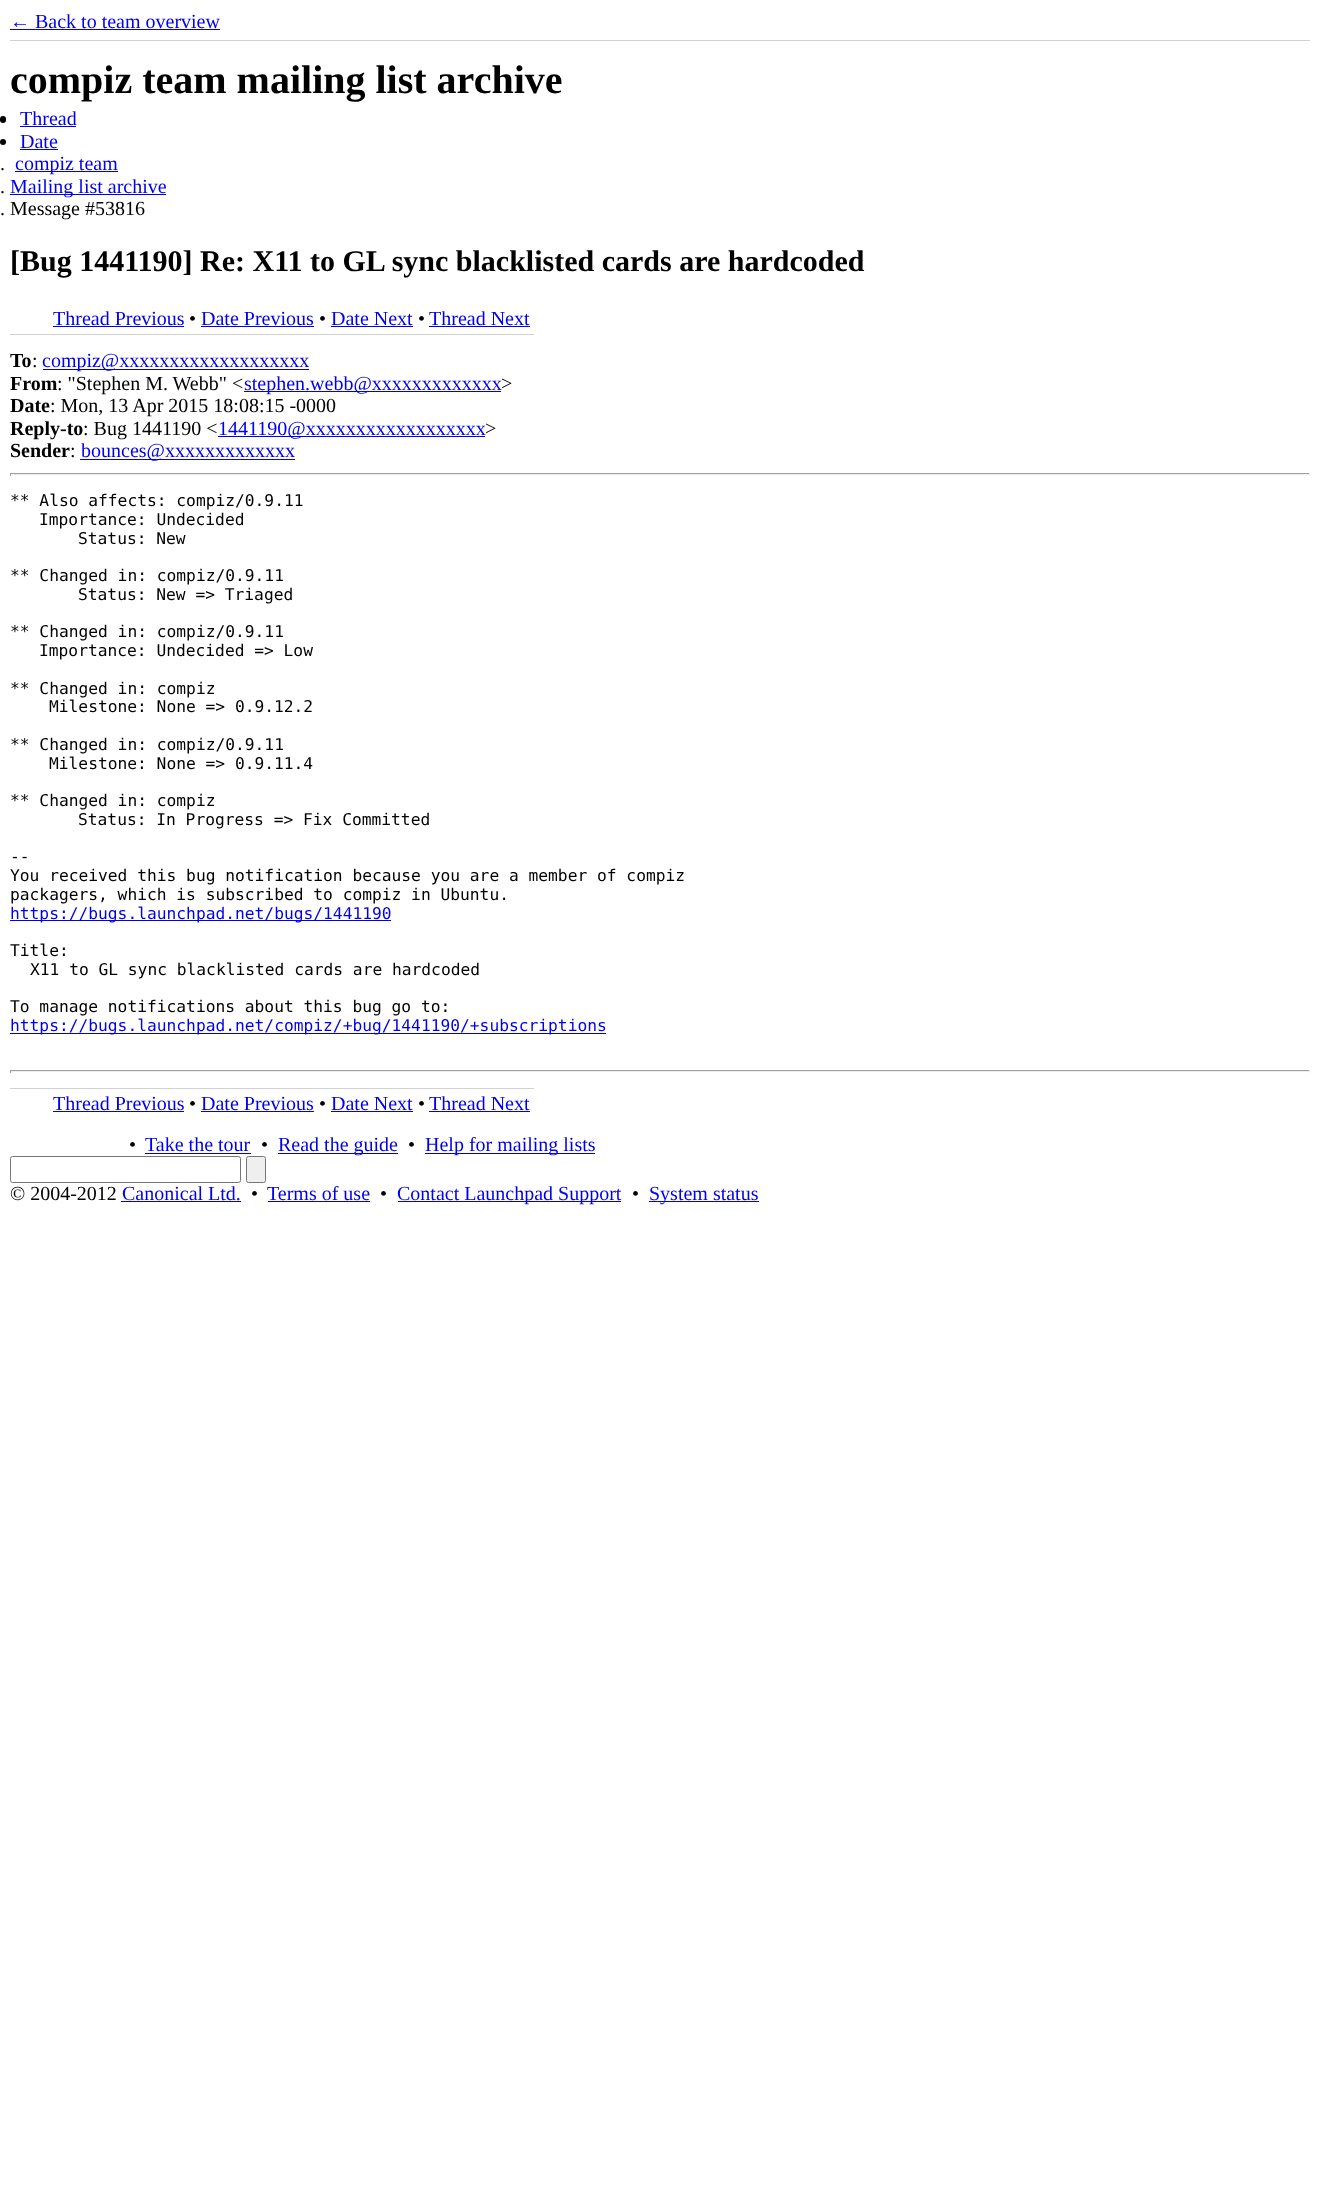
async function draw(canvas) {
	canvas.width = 1319;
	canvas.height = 2203;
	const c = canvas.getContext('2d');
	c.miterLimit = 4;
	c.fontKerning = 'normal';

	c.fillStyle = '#fff';
	c.fillRect(0, 0, 1319, 2203);
	c.fillStyle = '#d2d2d2';
	c.fillRect(10, 40, 1300, 1);
	c.font = '20px Liberation Serif';
	c.fillStyle = '#00e';
	c.fillText('← Back to team overview', 10, 28);
	c.fillRect(10, 29, 210, 1);
	c.font = 'bold 40px Liberation Serif';
	c.fillStyle = '#000';
	c.fillText('compiz team mailing list archive', 10, 93);
	c.beginPath();
	c.roundRect(0, 116, 6, 7, 3);
	c.fill();
	c.font = '20px Liberation Serif';
	c.fillStyle = '#00e';
	c.fillText('Thread', 20, 125);
	c.fillRect(20, 126, 56, 1);
	c.fillStyle = '#000';
	c.beginPath();
	c.arc(3, 142, 3, 0, 2 * Math.PI);
	c.fill();
	c.fillStyle = '#00e';
	c.fillText('Date', 20, 148);
	c.fillRect(20, 149, 38, 1);
	c.fillStyle = '#000';
	c.fillText('.', 0, 170);
	c.fillStyle = '#00e';
	c.fillRect(15, 171, 103, 1);
	c.fillText('compiz team', 15, 170);
	c.fillStyle = '#000';
	c.fillText('.', 0, 193);
	c.fillStyle = '#00e';
	c.fillRect(10, 194, 156, 1);
	c.fillText('Mailing list archive', 10, 193);
	c.fillStyle = '#000';
	c.fillText('. Message #53816', 0, 215);
	c.font = 'bold 30px Liberation Serif';
	c.fillText('[Bug 1441190] Re: X11 to GL sync blacklisted cards are hardcoded', 10, 271);
	c.fillStyle = '#d2d2d2';
	c.fillRect(10, 334, 524, 1);
	c.font = '20px Liberation Serif';
	c.fillStyle = '#00e';
	c.fillText('Thread Previous', 53, 325);
	c.fillRect(53, 326, 131, 1);
	c.fillStyle = '#000';
	c.fillText('•', 189, 325);
	c.fillStyle = '#00e';
	c.fillText('Date Previous', 201, 325);
	c.fillRect(201, 326, 113, 1);
	c.fillStyle = '#000';
	c.fillText('•', 319, 325);
	c.fillStyle = '#00e';
	c.fillText('Date Next', 331, 325);
	c.fillRect(331, 326, 82, 1);
	c.fillStyle = '#000';
	c.fillText('•', 418, 325);
	c.fillStyle = '#00e';
	c.fillText('Thread Next', 429, 325);
	c.fillRect(429, 326, 101, 1);
	c.font = 'bold 20px Liberation Serif';
	c.fillStyle = '#000';
	c.fillText('To', 10, 367);
	c.font = '20px Liberation Serif';
	c.fillText(':', 32, 367);
	c.fillStyle = '#00e';
	c.fillRect(43, 369, 266, 1);
	c.fillText('compiz@xxxxxxxxxxxxxxxxxxx', 42, 367);
	c.font = 'bold 20px Liberation Serif';
	c.fillStyle = '#000';
	c.fillText('From', 10, 390);
	c.font = '20px Liberation Serif';
	c.fillText(': "Stephen M. Webb" <', 57, 390);
	c.fillStyle = '#00e';
	c.fillRect(244, 391, 257, 1);
	c.fillText('stephen.webb@xxxxxxxxxxxxx', 244, 390);
	c.fillStyle = '#000';
	c.fillText('>', 501, 390);
	c.font = 'bold 20px Liberation Serif';
	c.fillText('Date', 10, 412);
	c.font = '20px Liberation Serif';
	c.fillText(': Mon, 13 Apr 2015 18:08:15 -0000', 50, 412);
	c.font = 'bold 20px Liberation Serif';
	c.fillText('Reply-to', 10, 435);
	c.font = '20px Liberation Serif';
	c.fillText(': Bug 1441190 <', 83, 435);
	c.fillStyle = '#00e';
	c.fillRect(218, 436, 267, 1);
	c.fillText('1441190@xxxxxxxxxxxxxxxxxx', 218, 435);
	c.fillStyle = '#000';
	c.fillText('>', 485, 435);
	c.font = 'bold 20px Liberation Serif';
	c.fillText('Sender', 10, 457);
	c.font = '20px Liberation Serif';
	c.fillText(':', 70, 457);
	c.fillStyle = '#00e';
	c.fillRect(80, 459, 215, 1);
	c.fillText('bounces@xxxxxxxxxxxxx', 81, 457);
	for (const [x, y, w, h, color] of [
		[10, 473, 1300, 1, '#9f9f9f'],
		[1309, 473, 1, 3, '#eee'],
		[10, 474, 1300, 1, '#eee'],
		[10, 473, 1, 3, '#9f9f9f'],
	]) {
		c.fillStyle = color;
		c.fillRect(x, y, w, h);
	}
	c.font = '16.25px DejaVu Sans Mono';
	c.fillStyle = '#000';
	for (const [text, x, y] of [
		['** Also affects: compiz/0.9.11', 10, 506],
		['Importance: Undecided', 39, 525],
		['Status: New', 78, 544],
		['** Changed in: compiz/0.9.11', 10, 581],
		['Status: New => Triaged', 78, 600],
		['** Changed in: compiz/0.9.11', 10, 637],
		['Importance: Undecided => Low', 39, 656],
		['** Changed in: compiz', 10, 694],
		['Milestone: None => 0.9.12.2', 49, 712],
		['** Changed in: compiz/0.9.11', 10, 750],
		['Milestone: None => 0.9.11.4', 49, 769],
		['** Changed in: compiz', 10, 806],
		['Status: In Progress => Fix Committed', 78, 825],
		['--', 10, 862],
		['You received this bug notification because you are a member of compiz', 10, 881],
		['packagers, which is subscribed to compiz in Ubuntu.', 10, 900],
	]) {
		c.fillText(text, x, y);
	}
	c.fillStyle = '#00e';
	c.fillRect(10, 920, 381, 1);
	c.fillText('https://bugs.launchpad.net/bugs/1441190', 10, 919);
	c.fillStyle = '#000';
	for (const [text, x, y] of [
		['Title:', 10, 956],
		['X11 to GL sync blacklisted cards are hardcoded', 30, 975],
		['To manage notifications about this bug go to:', 10, 1012],
	]) {
		c.fillText(text, x, y);
	}
	c.fillStyle = '#00e';
	c.fillRect(10, 1033, 596, 1);
	c.fillText('https://bugs.launchpad.net/compiz/+bug/1441190/+subscriptions', 10, 1031);
	for (const [x, y, w, h, color] of [
		[10, 1070, 1300, 1, '#9f9f9f'],
		[1309, 1070, 1, 3, '#eee'],
		[10, 1071, 1300, 1, '#eee'],
		[10, 1070, 1, 3, '#9f9f9f'],
		[10, 1088, 524, 1, '#d2d2d2'],
	]) {
		c.fillStyle = color;
		c.fillRect(x, y, w, h);
	}
	c.font = '20px Liberation Serif';
	c.fillStyle = '#00e';
	c.fillText('Thread Previous', 53, 1110);
	c.fillRect(53, 1111, 131, 1);
	c.fillStyle = '#000';
	c.fillText('•', 189, 1110);
	c.fillStyle = '#00e';
	c.fillText('Date Previous', 201, 1110);
	c.fillRect(201, 1111, 113, 1);
	c.fillStyle = '#000';
	c.fillText('•', 319, 1110);
	c.fillStyle = '#00e';
	c.fillText('Date Next', 331, 1110);
	c.fillRect(331, 1111, 82, 1);
	c.fillStyle = '#000';
	c.fillText('•', 418, 1110);
	c.fillStyle = '#00e';
	c.fillText('Thread Next', 429, 1110);
	c.fillRect(429, 1111, 101, 1);
	c.fillStyle = '#000';
	c.fillText('•', 129, 1151);
	c.fillStyle = '#00e';
	c.fillText('Take the tour', 145, 1151);
	c.fillRect(145, 1153, 106, 1);
	c.fillStyle = '#000';
	c.fillText('•', 261, 1151);
	c.fillStyle = '#00e';
	c.fillRect(278, 1153, 120, 1);
	c.fillText('Read the guide', 278, 1151);
	c.fillStyle = '#000';
	c.fillText('•', 408, 1151);
	c.fillStyle = '#00e';
	c.fillRect(425, 1153, 170, 1);
	c.fillText('Help for mailing lists', 425, 1151);
	c.beginPath();
	c.roundRect(10.5, 1156.5, 230, 26, 2);
	c.strokeStyle = '#767676';
	c.stroke();
	c.fillStyle = '#efefef';
	c.beginPath();
	c.roundRect(246.5, 1156.5, 19, 26, 2);
	c.fill();
	c.stroke();
	c.fillStyle = '#000';
	c.fillText('© 2004-2012', 10, 1200);
	c.fillStyle = '#00e';
	c.fillText('Canonical Ltd.', 122, 1200);
	c.fillRect(121, 1201, 120, 1);
	c.fillStyle = '#000';
	c.fillText('•', 251, 1200);
	c.fillStyle = '#00e';
	c.fillText('Terms of use', 267, 1200);
	c.fillRect(268, 1201, 102, 1);
	c.fillStyle = '#000';
	c.fillText('•', 380, 1200);
	c.fillStyle = '#00e';
	c.fillRect(398, 1201, 223, 1);
	c.fillText('Contact Launchpad Support', 397, 1200);
	c.fillStyle = '#000';
	c.fillText('•', 632, 1200);
	c.fillStyle = '#00e';
	c.fillRect(649, 1201, 110, 1);
	c.fillText('System status', 649, 1200);
}

draw(document.querySelector('canvas'));
